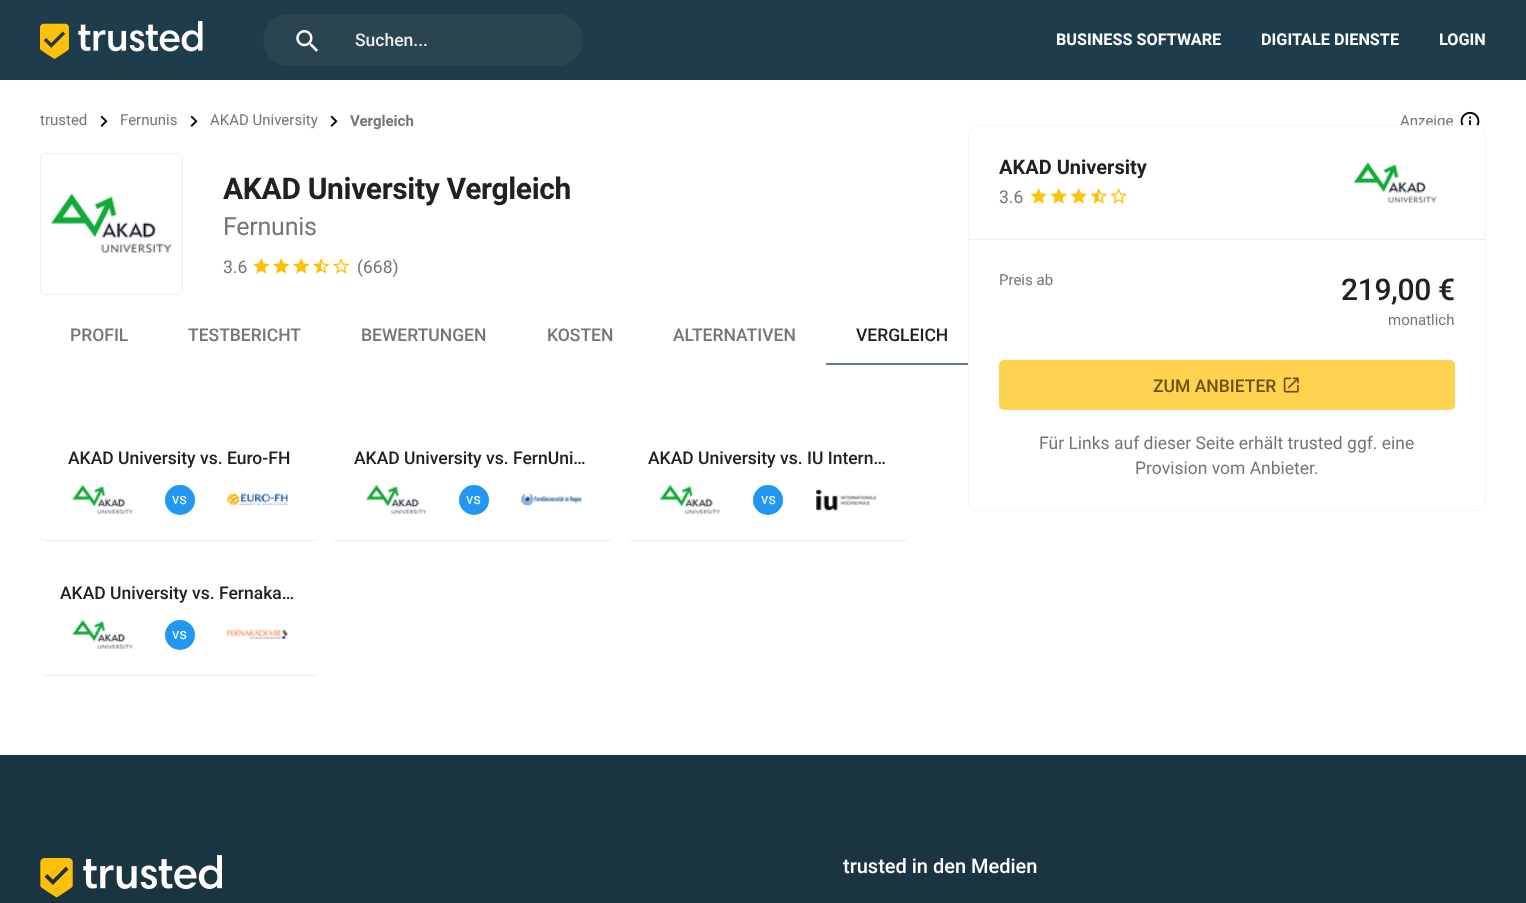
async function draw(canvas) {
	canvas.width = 1526;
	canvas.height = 903;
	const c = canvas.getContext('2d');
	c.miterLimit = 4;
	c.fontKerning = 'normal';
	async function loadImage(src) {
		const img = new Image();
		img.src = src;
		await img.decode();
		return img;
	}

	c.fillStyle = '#1f3c4c';
	c.fillRect(0, 0, 1526, 903);
	c.drawImage(await loadImage('img1.png'), 40, 21, 163, 38);
	c.fillStyle = '#2a4452';
	c.beginPath();
	c.roundRect(263, 14, 320, 52, 26);
	c.fill();
	c.drawImage(await loadImage('img2.png'), 296, 30, 22, 22);
	c.font = '500 17.5px Roboto';
	c.fillStyle = '#eaecec';
	c.fillText('Suchen...', 355, 46);
	c.font = 'bold 16.25px Roboto';
	c.fillStyle = '#fff';
	for (const [text, x, y] of [
		['BUSINESS SOFTWARE', 1056, 45],
		['DIGITALE DIENSTE', 1261, 45],
		['LOGIN', 1439, 45],
	]) {
		c.fillText(text, x, y);
	}
	c.fillRect(0, 80, 1526, 675);
	c.font = '15px Roboto';
	c.fillStyle = '#757575';
	c.fillText('trusted', 40, 125);
	c.drawImage(await loadImage('img3.png'), 100, 115, 8, 12);
	c.fillText('Fernunis', 120, 125);
	c.drawImage(await loadImage('img3.png'), 190, 115, 8, 12);
	c.fillText('AKAD University', 210, 125);
	c.drawImage(await loadImage('img3.png'), 330, 115, 8, 12);
	c.font = 'bold 15px Roboto';
	c.fillText('Vergleich', 350, 126);
	c.font = '15px Roboto';
	c.fillText('Anzeige', 1400, 126);
	c.drawImage(await loadImage('img4.png'), 1460, 111, 20, 15);
	c.beginPath();
	c.roundRect(40.5, 153.5, 142, 141, 4.5);
	c.strokeStyle = '#eee';
	c.stroke();
	c.drawImage(await loadImage('img5.png'), 51, 193, 121, 60);
	c.letterSpacing = '-0.35px';
	c.font = 'bold 30px Roboto';
	c.fillStyle = '#202124';
	c.fillText('AKAD University Vergleich', 223, 199);
	c.letterSpacing = '-0.25px';
	c.font = '25px Roboto';
	c.fillStyle = '#757575';
	c.fillText('Fernunis', 223, 235);
	c.letterSpacing = '0px';
	c.font = '17.5px Roboto';
	c.fillText('3.6', 223, 273);
	c.drawImage(await loadImage('img6.png'), 253, 258, 17, 16);
	c.drawImage(await loadImage('img6.png'), 273, 258, 17, 16);
	c.drawImage(await loadImage('img6.png'), 293, 258, 17, 16);
	c.drawImage(await loadImage('img7.png'), 313, 258, 17, 16);
	c.drawImage(await loadImage('img8.png'), 333, 258, 17, 16);
	c.fillText('(668)', 357, 273);
	c.font = '500 17.5px Roboto';
	for (const [text, x, y] of [
		['PROFIL', 70, 341],
		['TESTBERICHT', 188, 341],
		['BEWERTUNGEN', 361, 341],
		['KOSTEN', 547, 341],
		['ALTERNATIVEN', 673, 341],
	]) {
		c.fillText(text, x, y);
	}
	c.fillStyle = '#202124';
	c.fillText('VERGLEICH', 856, 341);
	c.fillStyle = '#607d8b';
	c.fillRect(826, 363, 142, 2);
	c.fillStyle = '#fff';
	c.beginPath();
	c.roundRect(968.5, 125.5, 517, 385, 9.5);
	c.fill();
	c.strokeStyle = '#f3f5f8';
	c.stroke();
	c.fillStyle = '#eee';
	c.fillRect(969, 239, 516, 1);
	c.font = 'bold 20px Roboto';
	c.fillStyle = '#202124';
	c.fillText('AKAD University', 999, 174);
	c.font = '17.5px Roboto';
	c.fillStyle = '#757575';
	c.fillText('3.6', 999, 203);
	c.drawImage(await loadImage('img9.png'), 1030, 188, 17, 16);
	c.drawImage(await loadImage('img9.png'), 1050, 188, 17, 16);
	c.drawImage(await loadImage('img9.png'), 1070, 188, 17, 16);
	c.drawImage(await loadImage('img10.png'), 1090, 188, 17, 16);
	c.drawImage(await loadImage('img11.png'), 1110, 188, 17, 16);
	c.drawImage(await loadImage('img12.png'), 1353, 162, 84, 41);
	c.font = '15px Roboto';
	c.fillText('Preis ab', 999, 285);
	c.letterSpacing = '-0.35px';
	c.font = '500 30px Roboto';
	c.fillStyle = '#202124';
	c.fillText('219,00 €', 1341, 300);
	c.letterSpacing = '0px';
	c.font = '15px Roboto';
	c.fillStyle = '#757575';
	c.fillText('monatlich', 1388, 325);
	c.fillStyle = '#ffd34f';
	c.beginPath();
	c.roundRect(999, 360, 456, 50, 5);
	c.fill();
	c.font = '500 17.5px Roboto';
	c.fillStyle = '#6f4e0a';
	c.fillText('ZUM ANBIETER', 1153, 392);
	c.drawImage(await loadImage('img13.png'), 1283, 377, 16, 16);
	c.font = '17.5px Roboto';
	c.fillStyle = '#757575';
	c.fillText('Für Links auf dieser Seite erhält trusted ggf. eine', 1039, 449);
	c.fillText('Provision vom Anbieter.', 1135, 474);
	c.fillStyle = '#00000014';
	c.filter = 'blur(0.5px)';
	c.beginPath();
	c.roundRect(40, 426, 279, 115, 5);
	c.fill();
	c.filter = 'none';
	c.fillStyle = '#fff';
	c.beginPath();
	c.roundRect(40, 425, 279, 115, 5);
	c.fill();
	c.font = '500 17.5px Roboto';
	c.fillStyle = '#202124';
	c.fillText('AKAD University vs. Euro-FH', 68, 464);
	c.drawImage(await loadImage('img14.png'), 72, 484, 61, 30);
	c.fillStyle = '#2196f3';
	c.beginPath();
	c.arc(180, 500, 15, 0, 2 * Math.PI);
	c.fill();
	c.font = '15px Roboto';
	c.fillStyle = '#fff';
	c.fillText('vs', 172, 504);
	c.drawImage(await loadImage('img15.png'), 227, 493, 61, 13);
	c.fillStyle = '#00000014';
	c.filter = 'blur(0.5px)';
	c.beginPath();
	c.roundRect(334, 426, 280, 115, 5);
	c.fill();
	c.filter = 'none';
	c.fillStyle = '#fff';
	c.beginPath();
	c.roundRect(334, 425, 280, 115, 5);
	c.fill();
	c.font = '500 17.5px Roboto';
	c.fillStyle = '#202124';
	c.fillText('AKAD University vs. FernUni…', 354, 464);
	c.drawImage(await loadImage('img16.png'), 366, 484, 61, 30);
	c.fillStyle = '#2196f3';
	c.beginPath();
	c.arc(474, 500, 15, 0, 2 * Math.PI);
	c.fill();
	c.font = '15px Roboto';
	c.fillStyle = '#fff';
	c.fillText('vs', 466, 504);
	c.drawImage(await loadImage('img17.png'), 521, 493, 61, 13);
	c.fillStyle = '#00000014';
	c.filter = 'blur(0.5px)';
	c.beginPath();
	c.roundRect(629, 426, 279, 115, 5);
	c.fill();
	c.filter = 'none';
	c.fillStyle = '#fff';
	c.beginPath();
	c.roundRect(629, 425, 279, 115, 5);
	c.fill();
	c.font = '500 17.5px Roboto';
	c.fillStyle = '#202124';
	c.fillText('AKAD University vs. IU Intern…', 648, 464);
	c.drawImage(await loadImage('img18.png'), 660, 484, 60, 30);
	c.fillStyle = '#2196f3';
	c.beginPath();
	c.arc(768, 500, 15, 0, 2 * Math.PI);
	c.fill();
	c.font = '15px Roboto';
	c.fillStyle = '#fff';
	c.fillText('vs', 761, 504);
	c.drawImage(await loadImage('img19.png'), 816, 489, 61, 22);
	c.fillStyle = '#00000014';
	c.filter = 'blur(0.5px)';
	c.beginPath();
	c.roundRect(40, 561, 279, 115, 5);
	c.fill();
	c.filter = 'none';
	c.fillStyle = '#fff';
	c.beginPath();
	c.roundRect(40, 560, 279, 115, 5);
	c.fill();
	c.font = '500 17.5px Roboto';
	c.fillStyle = '#202124';
	c.fillText('AKAD University vs. Fernaka…', 60, 599);
	c.drawImage(await loadImage('img14.png'), 72, 619, 61, 30);
	c.fillStyle = '#2196f3';
	c.beginPath();
	c.arc(180, 635, 15, 0, 2 * Math.PI);
	c.fill();
	c.font = '15px Roboto';
	c.fillStyle = '#fff';
	c.fillText('vs', 172, 639);
	c.drawImage(await loadImage('img20.png'), 227, 629, 61, 10);
	c.fillStyle = '#1b3442';
	c.fillRect(0, 755, 1526, 148);
	c.drawImage(await loadImage('img21.png'), 40, 855, 182, 43);
	c.font = '500 20px Roboto';
	c.fillStyle = '#fff';
	c.fillText('trusted in den Medien', 843, 873);
}

draw(document.querySelector('canvas'));
